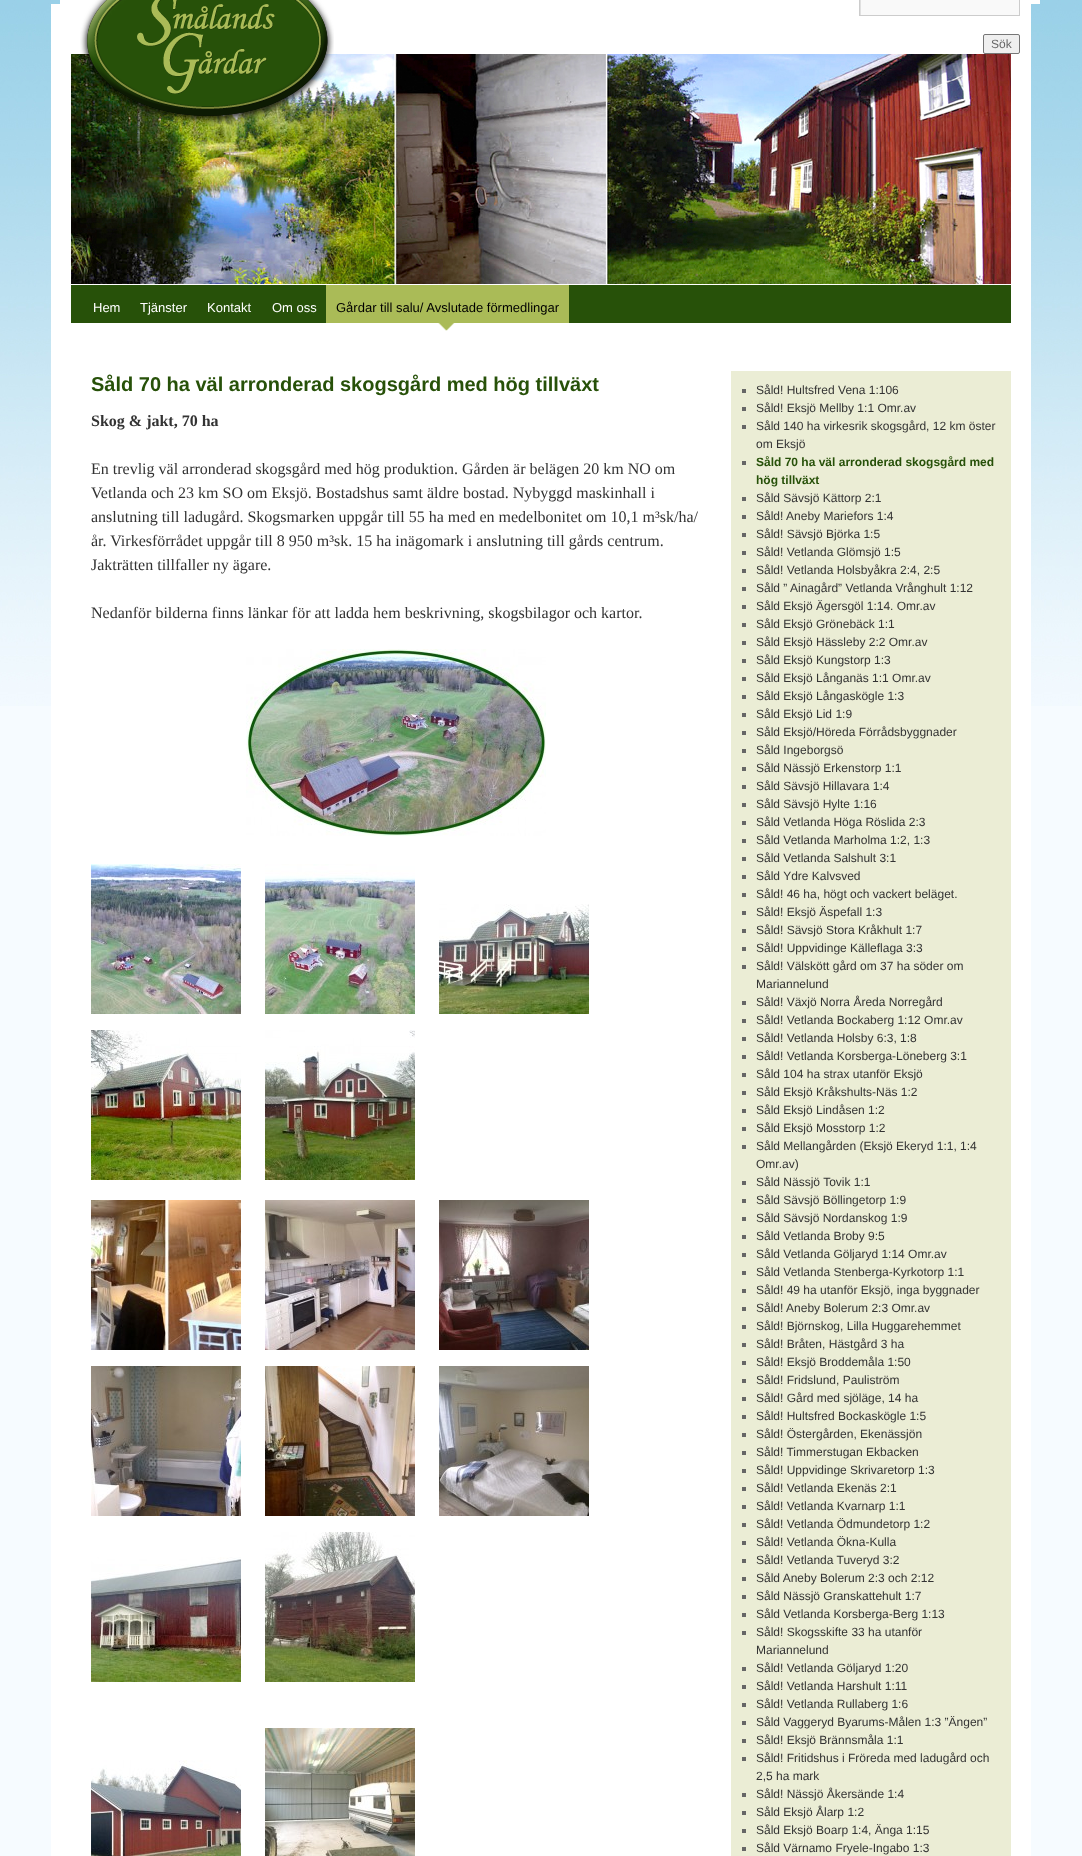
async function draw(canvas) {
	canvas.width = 1082;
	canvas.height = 1856;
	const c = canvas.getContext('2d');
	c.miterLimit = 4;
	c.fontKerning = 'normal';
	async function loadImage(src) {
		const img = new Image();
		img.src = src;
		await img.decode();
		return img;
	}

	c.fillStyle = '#f6fbff';
	c.fillRect(0, 0, 1082, 1856);
	c.drawImage(await loadImage('img1.png'), 0, 0, 1082, 706);
	for (const [x, y, w, h, color] of [
		[60, 0, 980, 4, '#fff'],
		[51, 4, 980, 1852, '#fff'],
		[861, 0, 158, 15, '#f9f9f9'],
	]) {
		c.fillStyle = color;
		c.fillRect(x, y, w, h);
	}
	c.save();
	c.beginPath();
	c.rect(860, 0, 159, 15);
	c.clip();
	c.fillStyle = '#e0e0e0';
	c.beginPath();
	c.moveTo(761, -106);
	c.lineTo(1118, -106);
	c.lineTo(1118, 114);
	c.lineTo(761, 114);
	c.closePath();
	c.moveTo(861, -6);
	c.lineTo(1020, -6);
	c.lineTo(1020, 16);
	c.lineTo(861, 16);
	c.closePath();
	c.fill('evenodd');
	c.restore();
	c.strokeStyle = '#ccc';
	c.strokeRect(859.5, -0.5, 160, 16);
	c.fillStyle = '#efefef';
	c.beginPath();
	c.roundRect(983.5, 34.5, 36, 19, 1.5);
	c.fill();
	c.strokeStyle = '#767676';
	c.stroke();
	c.font = '12px Liberation Sans';
	c.fillStyle = '#666';
	c.fillText('Sök', 991, 48);
	c.drawImage(await loadImage('img3.png'), 71, 54, 940, 230);
	c.drawImage(await loadImage('img2.png'), 80, 0, 254, 125);
	c.fillStyle = '#275109';
	c.fillRect(71, 285, 940, 38);
	c.font = '13px Liberation Sans';
	c.fillStyle = '#fff';
	for (const [text, x, y] of [
		['Hem', 93, 312],
		['Tjänster', 140, 312],
		['Kontakt', 207, 312],
		['Om oss', 272, 312],
	]) {
		c.fillText(text, x, y);
	}
	c.drawImage(await loadImage('img4.png'), 326, 285, 243, 46);
	c.fillStyle = '#000';
	c.fillText('Gårdar till salu/ Avslutade förmedlingar', 336, 312);
	c.font = 'bold 20px Liberation Sans';
	c.fillStyle = '#275109';
	c.fillText('Såld 70 ha väl arronderad skogsgård med hög tillväxt', 91, 391);
	c.font = 'bold 16px Liberation Serif';
	c.fillStyle = '#333';
	c.fillText('Skog & jakt, 70 ha', 91, 426);
	c.font = '16px Liberation Serif';
	for (const [text, x, y] of [
		['En trevlig väl arronderad skogsgård med hög produktion. Gården är belägen 20 km NO om', 91, 474],
		['Vetlanda och 23 km SO om Eksjö. Bostadshus samt äldre bostad. Nybyggd maskinhall i', 91, 498],
		['anslutning till ladugård. Skogsmarken uppgår till 55 ha med en medelbonitet om 10,1 m³sk/ha/', 91, 522],
		['år. Virkesförrådet uppgår till 8 950 m³sk. 15 ha inägomark i anslutning till gårds centrum.', 91, 546],
		['Jakträtten tillfaller ny ägare.', 91, 570],
		['Nedanför bilderna finns länkar för att ladda hem beskrivning, skogsbilagor och kartor.', 91, 618],
	]) {
		c.fillText(text, x, y);
	}
	c.drawImage(await loadImage('img5.png'), 246, 649, 300, 187);
	c.drawImage(await loadImage('img6.png'), 91, 864, 150, 150);
	c.drawImage(await loadImage('img7.png'), 265, 864, 150, 150);
	c.drawImage(await loadImage('img8.png'), 439, 904, 150, 110);
	c.drawImage(await loadImage('img9.png'), 91, 1030, 150, 150);
	c.drawImage(await loadImage('img10.png'), 265, 1030, 150, 150);
	c.drawImage(await loadImage('img11.png'), 91, 1200, 150, 150);
	c.drawImage(await loadImage('img12.png'), 265, 1200, 150, 150);
	c.drawImage(await loadImage('img13.png'), 439, 1200, 150, 150);
	c.drawImage(await loadImage('img14.png'), 91, 1366, 150, 150);
	c.drawImage(await loadImage('img15.png'), 265, 1366, 150, 150);
	c.drawImage(await loadImage('img16.png'), 439, 1366, 150, 150);
	c.drawImage(await loadImage('img17.png'), 91, 1557, 150, 125);
	c.drawImage(await loadImage('img18.png'), 265, 1532, 150, 150);
	c.drawImage(await loadImage('img19.png'), 91, 1760, 150, 96);
	c.drawImage(await loadImage('img20.png'), 265, 1728, 150, 128);
	c.fillStyle = '#ebedd5';
	c.fillRect(731, 371, 280, 1485);
	c.fillStyle = '#666';
	c.fillRect(742, 389, 4, 4);
	c.font = '12px Liberation Sans';
	c.fillStyle = '#333';
	c.fillText('Såld! Hultsfred Vena 1:106', 756, 394);
	c.fillStyle = '#666';
	c.fillRect(742, 407, 4, 4);
	c.fillStyle = '#333';
	c.fillText('Såld! Eksjö Mellby 1:1 Omr.av', 756, 412);
	c.fillStyle = '#666';
	c.fillRect(742, 425, 4, 4);
	c.fillStyle = '#333';
	c.fillText('Såld 140 ha virkesrik skogsgård, 12 km öster', 756, 430);
	c.fillText('om Eksjö', 756, 448);
	c.fillStyle = '#666';
	c.fillRect(742, 461, 4, 4);
	c.font = 'bold 12px Liberation Sans';
	c.fillStyle = '#275109';
	c.fillText('Såld 70 ha väl arronderad skogsgård med', 756, 466);
	c.fillText('hög tillväxt', 756, 484);
	c.fillStyle = '#666';
	c.fillRect(742, 497, 4, 4);
	c.font = '12px Liberation Sans';
	c.fillStyle = '#333';
	c.fillText('Såld Sävsjö Kättorp 2:1', 756, 502);
	c.fillStyle = '#666';
	c.fillRect(742, 515, 4, 4);
	c.fillStyle = '#333';
	c.fillText('Såld! Aneby Mariefors 1:4', 756, 520);
	c.fillStyle = '#666';
	c.fillRect(742, 533, 4, 4);
	c.fillStyle = '#333';
	c.fillText('Såld! Sävsjö Björka 1:5', 756, 538);
	c.fillStyle = '#666';
	c.fillRect(742, 551, 4, 4);
	c.fillStyle = '#333';
	c.fillText('Såld! Vetlanda Glömsjö 1:5', 756, 556);
	c.fillStyle = '#666';
	c.fillRect(742, 569, 4, 4);
	c.fillStyle = '#333';
	c.fillText('Såld! Vetlanda Holsbyåkra 2:4, 2:5', 756, 574);
	c.fillStyle = '#666';
	c.fillRect(742, 587, 4, 4);
	c.fillStyle = '#333';
	c.fillText('Såld ” Ainagård” Vetlanda Vrånghult 1:12', 756, 592);
	c.fillStyle = '#666';
	c.fillRect(742, 605, 4, 4);
	c.fillStyle = '#333';
	c.fillText('Såld Eksjö Ägersgöl 1:14. Omr.av', 756, 610);
	c.fillStyle = '#666';
	c.fillRect(742, 623, 4, 4);
	c.fillStyle = '#333';
	c.fillText('Såld Eksjö Grönebäck 1:1', 756, 628);
	c.fillStyle = '#666';
	c.fillRect(742, 641, 4, 4);
	c.fillStyle = '#333';
	c.fillText('Såld Eksjö Hässleby 2:2 Omr.av', 756, 646);
	c.fillStyle = '#666';
	c.fillRect(742, 659, 4, 4);
	c.fillStyle = '#333';
	c.fillText('Såld Eksjö Kungstorp 1:3', 756, 664);
	c.fillStyle = '#666';
	c.fillRect(742, 677, 4, 4);
	c.fillStyle = '#333';
	c.fillText('Såld Eksjö Långanäs 1:1 Omr.av', 756, 682);
	c.fillStyle = '#666';
	c.fillRect(742, 695, 4, 4);
	c.fillStyle = '#333';
	c.fillText('Såld Eksjö Långaskögle 1:3', 756, 700);
	c.fillStyle = '#666';
	c.fillRect(742, 713, 4, 4);
	c.fillStyle = '#333';
	c.fillText('Såld Eksjö Lid 1:9', 756, 718);
	c.fillStyle = '#666';
	c.fillRect(742, 731, 4, 4);
	c.fillStyle = '#333';
	c.fillText('Såld Eksjö/Höreda Förrådsbyggnader', 756, 736);
	c.fillStyle = '#666';
	c.fillRect(742, 749, 4, 4);
	c.fillStyle = '#333';
	c.fillText('Såld Ingeborgsö', 756, 754);
	c.fillStyle = '#666';
	c.fillRect(742, 767, 4, 4);
	c.fillStyle = '#333';
	c.fillText('Såld Nässjö Erkenstorp 1:1', 756, 772);
	c.fillStyle = '#666';
	c.fillRect(742, 785, 4, 4);
	c.fillStyle = '#333';
	c.fillText('Såld Sävsjö Hillavara 1:4', 756, 790);
	c.fillStyle = '#666';
	c.fillRect(742, 803, 4, 4);
	c.fillStyle = '#333';
	c.fillText('Såld Sävsjö Hylte 1:16', 756, 808);
	c.fillStyle = '#666';
	c.fillRect(742, 821, 4, 4);
	c.fillStyle = '#333';
	c.fillText('Såld Vetlanda Höga Röslida 2:3', 756, 826);
	c.fillStyle = '#666';
	c.fillRect(742, 839, 4, 4);
	c.fillStyle = '#333';
	c.fillText('Såld Vetlanda Marholma 1:2, 1:3', 756, 844);
	c.fillStyle = '#666';
	c.fillRect(742, 857, 4, 4);
	c.fillStyle = '#333';
	c.fillText('Såld Vetlanda Salshult 3:1', 756, 862);
	c.fillStyle = '#666';
	c.fillRect(742, 875, 4, 4);
	c.fillStyle = '#333';
	c.fillText('Såld Ydre Kalvsved', 756, 880);
	c.fillStyle = '#666';
	c.fillRect(742, 893, 4, 4);
	c.fillStyle = '#333';
	c.fillText('Såld! 46 ha, högt och vackert beläget.', 756, 898);
	c.fillStyle = '#666';
	c.fillRect(742, 911, 4, 4);
	c.fillStyle = '#333';
	c.fillText('Såld! Eksjö Äspefall 1:3', 756, 916);
	c.fillStyle = '#666';
	c.fillRect(742, 929, 4, 4);
	c.fillStyle = '#333';
	c.fillText('Såld! Sävsjö Stora Kråkhult 1:7', 756, 934);
	c.fillStyle = '#666';
	c.fillRect(742, 947, 4, 4);
	c.fillStyle = '#333';
	c.fillText('Såld! Uppvidinge Källeflaga 3:3', 756, 952);
	c.fillStyle = '#666';
	c.fillRect(742, 965, 4, 4);
	c.fillStyle = '#333';
	c.fillText('Såld! Välskött gård om 37 ha söder om', 756, 970);
	c.fillText('Mariannelund', 756, 988);
	c.fillStyle = '#666';
	c.fillRect(742, 1001, 4, 4);
	c.fillStyle = '#333';
	c.fillText('Såld! Växjö Norra Åreda Norregård', 756, 1006);
	c.fillStyle = '#666';
	c.fillRect(742, 1019, 4, 4);
	c.fillStyle = '#333';
	c.fillText('Såld! Vetlanda Bockaberg 1:12 Omr.av', 756, 1024);
	c.fillStyle = '#666';
	c.fillRect(742, 1037, 4, 4);
	c.fillStyle = '#333';
	c.fillText('Såld! Vetlanda Holsby 6:3, 1:8', 756, 1042);
	c.fillStyle = '#666';
	c.fillRect(742, 1055, 4, 4);
	c.fillStyle = '#333';
	c.fillText('Såld! Vetlanda Korsberga-Löneberg 3:1', 756, 1060);
	c.fillStyle = '#666';
	c.fillRect(742, 1073, 4, 4);
	c.fillStyle = '#333';
	c.fillText('Såld 104 ha strax utanför Eksjö', 756, 1078);
	c.fillStyle = '#666';
	c.fillRect(742, 1091, 4, 4);
	c.fillStyle = '#333';
	c.fillText('Såld Eksjö Kråkshults-Näs 1:2', 756, 1096);
	c.fillStyle = '#666';
	c.fillRect(742, 1109, 4, 4);
	c.fillStyle = '#333';
	c.fillText('Såld Eksjö Lindåsen 1:2', 756, 1114);
	c.fillStyle = '#666';
	c.fillRect(742, 1127, 4, 4);
	c.fillStyle = '#333';
	c.fillText('Såld Eksjö Mosstorp 1:2', 756, 1132);
	c.fillStyle = '#666';
	c.fillRect(742, 1145, 4, 4);
	c.fillStyle = '#333';
	c.fillText('Såld Mellangården (Eksjö Ekeryd 1:1, 1:4', 756, 1150);
	c.fillText('Omr.av)', 756, 1168);
	c.fillStyle = '#666';
	c.fillRect(742, 1181, 4, 4);
	c.fillStyle = '#333';
	c.fillText('Såld Nässjö Tovik 1:1', 756, 1186);
	c.fillStyle = '#666';
	c.fillRect(742, 1199, 4, 4);
	c.fillStyle = '#333';
	c.fillText('Såld Sävsjö Böllingetorp 1:9', 756, 1204);
	c.fillStyle = '#666';
	c.fillRect(742, 1217, 4, 4);
	c.fillStyle = '#333';
	c.fillText('Såld Sävsjö Nordanskog 1:9', 756, 1222);
	c.fillStyle = '#666';
	c.fillRect(742, 1235, 4, 4);
	c.fillStyle = '#333';
	c.fillText('Såld Vetlanda Broby 9:5', 756, 1240);
	c.fillStyle = '#666';
	c.fillRect(742, 1253, 4, 4);
	c.fillStyle = '#333';
	c.fillText('Såld Vetlanda Göljaryd 1:14 Omr.av', 756, 1258);
	c.fillStyle = '#666';
	c.fillRect(742, 1271, 4, 4);
	c.fillStyle = '#333';
	c.fillText('Såld Vetlanda Stenberga-Kyrkotorp 1:1', 756, 1276);
	c.fillStyle = '#666';
	c.fillRect(742, 1289, 4, 4);
	c.fillStyle = '#333';
	c.fillText('Såld! 49 ha utanför Eksjö, inga byggnader', 756, 1294);
	c.fillStyle = '#666';
	c.fillRect(742, 1307, 4, 4);
	c.fillStyle = '#333';
	c.fillText('Såld! Aneby Bolerum 2:3 Omr.av', 756, 1312);
	c.fillStyle = '#666';
	c.fillRect(742, 1325, 4, 4);
	c.fillStyle = '#333';
	c.fillText('Såld! Björnskog, Lilla Huggarehemmet', 756, 1330);
	c.fillStyle = '#666';
	c.fillRect(742, 1343, 4, 4);
	c.fillStyle = '#333';
	c.fillText('Såld! Bråten, Hästgård 3 ha', 756, 1348);
	c.fillStyle = '#666';
	c.fillRect(742, 1361, 4, 4);
	c.fillStyle = '#333';
	c.fillText('Såld! Eksjö Broddemåla 1:50', 756, 1366);
	c.fillStyle = '#666';
	c.fillRect(742, 1379, 4, 4);
	c.fillStyle = '#333';
	c.fillText('Såld! Fridslund, Pauliström', 756, 1384);
	c.fillStyle = '#666';
	c.fillRect(742, 1397, 4, 4);
	c.fillStyle = '#333';
	c.fillText('Såld! Gård med sjöläge, 14 ha', 756, 1402);
	c.fillStyle = '#666';
	c.fillRect(742, 1415, 4, 4);
	c.fillStyle = '#333';
	c.fillText('Såld! Hultsfred Bockaskögle 1:5', 756, 1420);
	c.fillStyle = '#666';
	c.fillRect(742, 1433, 4, 4);
	c.fillStyle = '#333';
	c.fillText('Såld! Östergården, Ekenässjön', 756, 1438);
	c.fillStyle = '#666';
	c.fillRect(742, 1451, 4, 4);
	c.fillStyle = '#333';
	c.fillText('Såld! Timmerstugan Ekbacken', 756, 1456);
	c.fillStyle = '#666';
	c.fillRect(742, 1469, 4, 4);
	c.fillStyle = '#333';
	c.fillText('Såld! Uppvidinge Skrivaretorp 1:3', 756, 1474);
	c.fillStyle = '#666';
	c.fillRect(742, 1487, 4, 4);
	c.fillStyle = '#333';
	c.fillText('Såld! Vetlanda Ekenäs 2:1', 756, 1492);
	c.fillStyle = '#666';
	c.fillRect(742, 1505, 4, 4);
	c.fillStyle = '#333';
	c.fillText('Såld! Vetlanda Kvarnarp 1:1', 756, 1510);
	c.fillStyle = '#666';
	c.fillRect(742, 1523, 4, 4);
	c.fillStyle = '#333';
	c.fillText('Såld! Vetlanda Ödmundetorp 1:2', 756, 1528);
	c.fillStyle = '#666';
	c.fillRect(742, 1541, 4, 4);
	c.fillStyle = '#333';
	c.fillText('Såld! Vetlanda Ökna-Kulla', 756, 1546);
	c.fillStyle = '#666';
	c.fillRect(742, 1559, 4, 4);
	c.fillStyle = '#333';
	c.fillText('Såld! Vetlanda Tuveryd 3:2', 756, 1564);
	c.fillStyle = '#666';
	c.fillRect(742, 1577, 4, 4);
	c.fillStyle = '#333';
	c.fillText('Såld Aneby Bolerum 2:3 och 2:12', 756, 1582);
	c.fillStyle = '#666';
	c.fillRect(742, 1595, 4, 4);
	c.fillStyle = '#333';
	c.fillText('Såld Nässjö Granskattehult 1:7', 756, 1600);
	c.fillStyle = '#666';
	c.fillRect(742, 1613, 4, 4);
	c.fillStyle = '#333';
	c.fillText('Såld Vetlanda Korsberga-Berg 1:13', 756, 1618);
	c.fillStyle = '#666';
	c.fillRect(742, 1631, 4, 4);
	c.fillStyle = '#333';
	c.fillText('Såld! Skogsskifte 33 ha utanför', 756, 1636);
	c.fillText('Mariannelund', 756, 1654);
	c.fillStyle = '#666';
	c.fillRect(742, 1667, 4, 4);
	c.fillStyle = '#333';
	c.fillText('Såld! Vetlanda Göljaryd 1:20', 756, 1672);
	c.fillStyle = '#666';
	c.fillRect(742, 1685, 4, 4);
	c.fillStyle = '#333';
	c.fillText('Såld! Vetlanda Harshult 1:11', 756, 1690);
	c.fillStyle = '#666';
	c.fillRect(742, 1703, 4, 4);
	c.fillStyle = '#333';
	c.fillText('Såld! Vetlanda Rullaberg 1:6', 756, 1708);
	c.fillStyle = '#666';
	c.fillRect(742, 1721, 4, 4);
	c.fillStyle = '#333';
	c.fillText('Såld Vaggeryd Byarums-Målen 1:3 ”Ängen”', 756, 1726);
	c.fillStyle = '#666';
	c.fillRect(742, 1739, 4, 4);
	c.fillStyle = '#333';
	c.fillText('Såld! Eksjö Brännsmåla 1:1', 756, 1744);
	c.fillStyle = '#666';
	c.fillRect(742, 1757, 4, 4);
	c.fillStyle = '#333';
	c.fillText('Såld! Fritidshus i Fröreda med ladugård och', 756, 1762);
	c.fillText('2,5 ha mark', 756, 1780);
	c.fillStyle = '#666';
	c.fillRect(742, 1793, 4, 4);
	c.fillStyle = '#333';
	c.fillText('Såld! Nässjö Åkersände 1:4', 756, 1798);
	c.fillStyle = '#666';
	c.fillRect(742, 1811, 4, 4);
	c.fillStyle = '#333';
	c.fillText('Såld Eksjö Ålarp 1:2', 756, 1816);
	c.fillStyle = '#666';
	c.fillRect(742, 1829, 4, 4);
	c.fillStyle = '#333';
	c.fillText('Såld Eksjö Boarp 1:4, Änga 1:15', 756, 1834);
	c.fillStyle = '#666';
	c.fillRect(742, 1847, 4, 4);
	c.fillStyle = '#333';
	c.fillText('Såld Värnamo Fryele-Ingabo 1:3', 756, 1852);
}

draw(document.querySelector('canvas'));
